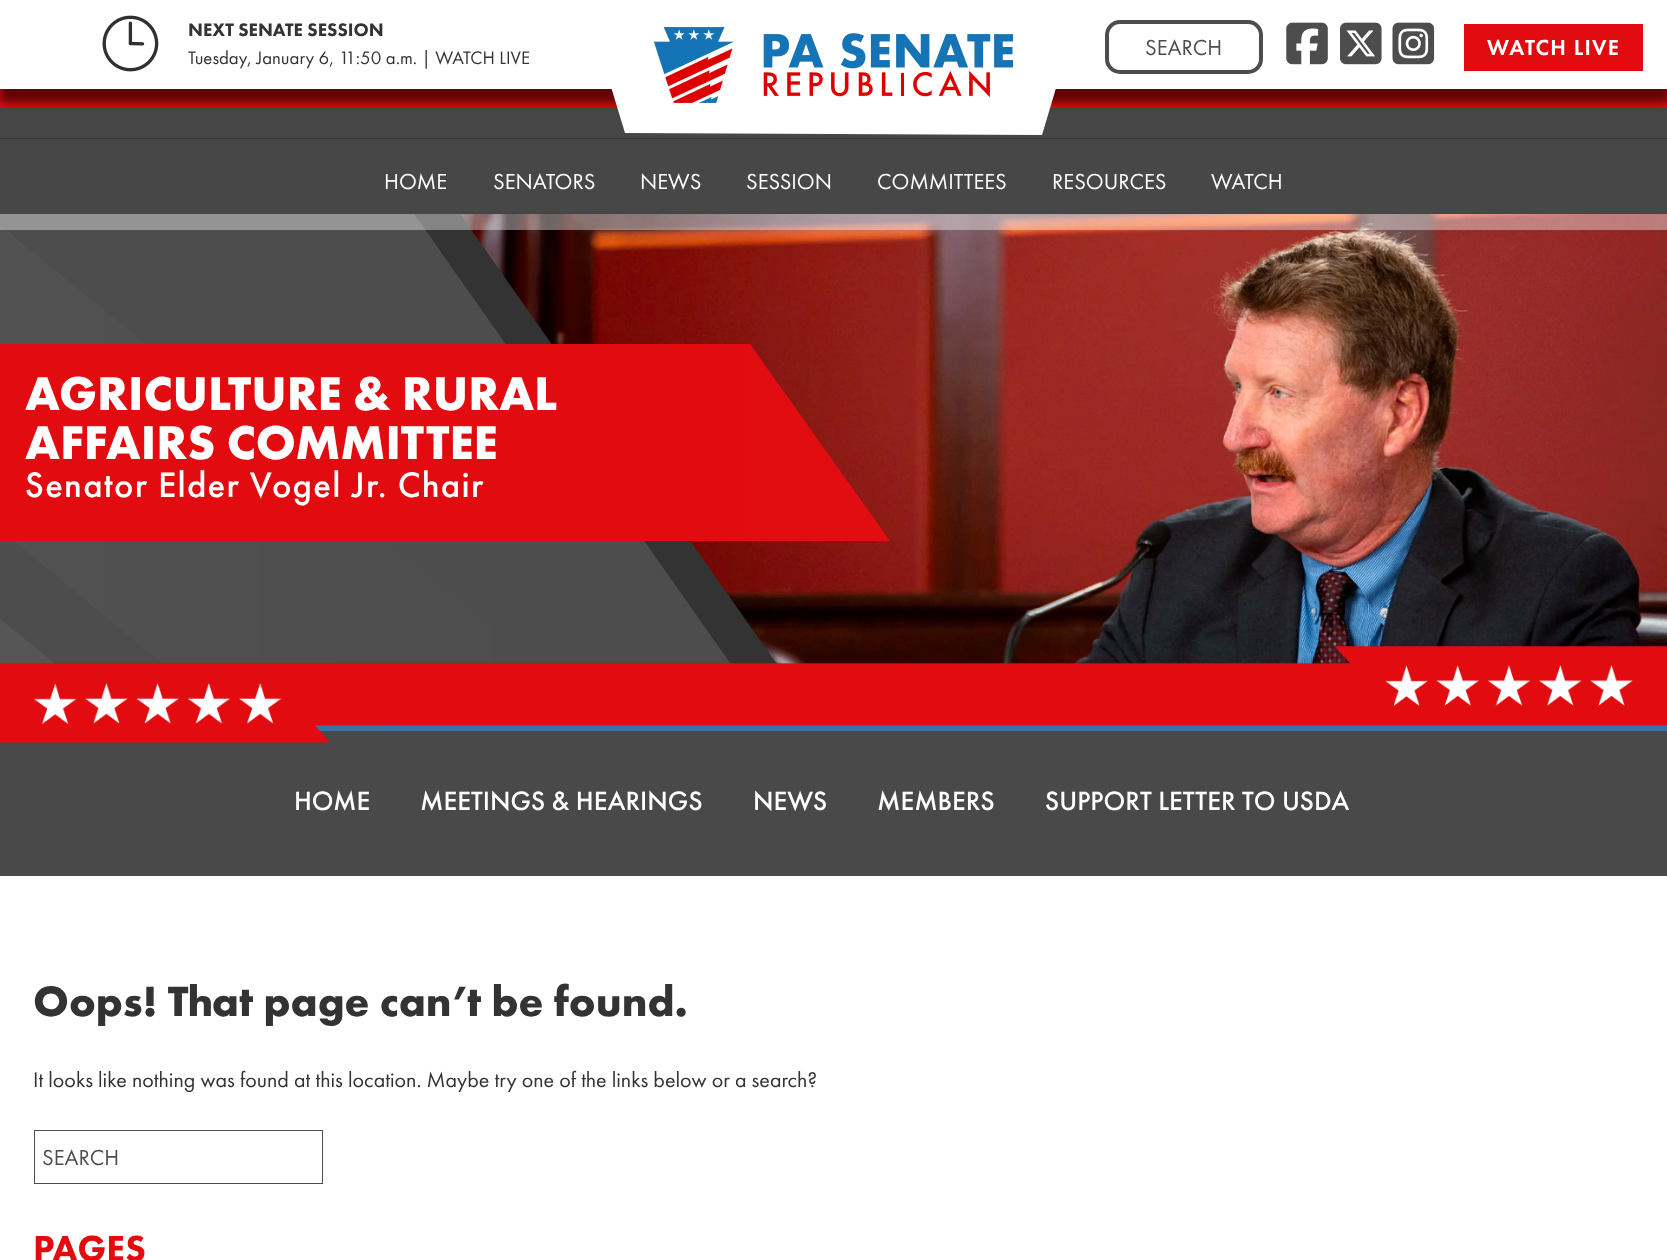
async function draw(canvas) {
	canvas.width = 1667;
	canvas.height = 1260;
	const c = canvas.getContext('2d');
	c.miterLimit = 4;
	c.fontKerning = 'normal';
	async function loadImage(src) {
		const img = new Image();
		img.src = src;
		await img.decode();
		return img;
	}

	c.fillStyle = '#fff';
	c.fillRect(0, 0, 1667, 1260);
	c.fillStyle = '#474747';
	c.fillRect(0, 108, 1667, 31);
	c.fillStyle = '#e20c10';
	c.fillRect(0, 89, 1667, 19);
	c.fillStyle = '#00000096';
	c.filter = 'blur(5px)';
	c.beginPath();
	c.rect(0, 11, 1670, 92);
	c.fill();
	c.filter = 'none';
	c.fillStyle = '#fff';
	c.fillRect(0, 0, 1667, 89);
	c.beginPath();
	c.moveTo(591, 21);
	c.lineTo(1076, 21);
	c.lineTo(1042, 135);
	c.lineTo(625, 133);
	c.closePath();
	c.fill();
	c.drawImage(await loadImage('img1.png'), 653, 27, 361, 76);
	c.drawImage(await loadImage('img2.png'), 102, 15, 57, 57);
	c.font = '900 18.75px Futura PT';
	c.fillStyle = '#333';
	c.fillText('NEXT SENATE SESSION', 188, 36);
	c.font = '18.75px Futura PT';
	c.fillText('Tuesday, January 6, 11:50 a.m. | WATCH LIVE', 188, 64);
	c.beginPath();
	c.roundRect(1107, 22, 154, 50, 13);
	c.strokeStyle = '#4d4d4d';
	c.lineWidth = 4;
	c.stroke();
	c.font = '22.5px Futura PT';
	c.fillStyle = '#4d4d4d';
	c.fillText('SEARCH', 1145, 55);
	c.drawImage(await loadImage('img3.png'), 1286, 22, 42, 43);
	c.drawImage(await loadImage('img4.png'), 1340, 22, 42, 43);
	c.drawImage(await loadImage('img5.png'), 1392, 22, 43, 43);
	c.fillStyle = '#e20c10';
	c.fillRect(1464, 24, 179, 47);
	c.letterSpacing = '1.25px';
	c.font = '500 22.5px "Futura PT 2"';
	c.fillStyle = '#fff';
	c.fillText('WATCH LIVE', 1487, 55);
	c.drawImage(await loadImage('img6.png'), 452, 213, 1215, 451);
	c.drawImage(await loadImage('img7.png'), 0, 214, 777, 450);
	for (const [x, y, w, h, color] of [
		[0, 213, 1667, 17, '#ffffff66'],
		[453, 213, 1214, 1, '#ffffff1a'],
		[0, 138, 1667, 76, '#333333e6'],
	]) {
		c.fillStyle = color;
		c.fillRect(x, y, w, h);
	}
	c.letterSpacing = '0px';
	c.font = '22.5px Futura PT';
	c.fillStyle = '#fff';
	for (const [text, x, y] of [
		['HOME', 384, 189],
		['SENATORS', 493, 189],
		['NEWS', 640, 189],
		['SESSION', 746, 189],
		['COMMITTEES', 877, 189],
		['RESOURCES', 1052, 189],
		['WATCH', 1211, 189],
	]) {
		c.fillText(text, x, y);
	}
	c.fillStyle = '#e20c10';
	c.fillRect(0, 344, 750, 197);
	c.font = 'bold 49.25px Futura PT';
	c.fillStyle = '#fff';
	c.fillText('AGRICULTURE & RURAL', 25, 410);
	c.fillText('AFFAIRS COMMITTEE', 25, 459);
	c.fillStyle = '#e20d11';
	c.beginPath();
	c.moveTo(890, 541);
	c.lineTo(750, 541);
	c.lineTo(750, 344);
	c.closePath();
	c.fill();
	c.letterSpacing = '1.25px';
	c.font = '500 36.7px Futura PT';
	c.fillStyle = '#fff';
	c.fillText('Senator Elder Vogel Jr. Chair', 25, 497);
	c.fillStyle = '#494949';
	c.fillRect(0, 727, 1667, 149);
	c.drawImage(await loadImage('img8.png'), 0, 646, 1667, 97);
	c.letterSpacing = '0px';
	c.font = '500 27.5px Futura PT';
	c.fillStyle = '#fff';
	for (const [text, x, y] of [
		['HOME', 294, 810],
		['MEETINGS & HEARINGS', 420, 810],
		['NEWS', 753, 810],
		['MEMBERS', 877, 810],
		['SUPPORT LETTER TO USDA', 1045, 810],
	]) {
		c.fillText(text, x, y);
	}
	c.font = 'bold 44px Futura PT';
	c.fillStyle = '#333';
	c.fillText('Oops! That page can’t be found.', 33, 1016);
	c.font = '22px Futura PT';
	c.fillText('It looks like nothing was found at this location. Maybe try one of the links below or a search?', 33, 1087);
	c.lineWidth = 1;
	c.strokeRect(34.5, 1130.5, 288, 53);
	c.font = '22.5px Futura PT';
	c.fillStyle = '#4d4d4d';
	c.fillText('SEARCH', 42, 1165);
	c.font = '900 37.5px Futura PT';
	c.fillStyle = '#e20c10';
	c.fillText('PAGES', 33, 1261);
}

draw(document.querySelector('canvas'));
